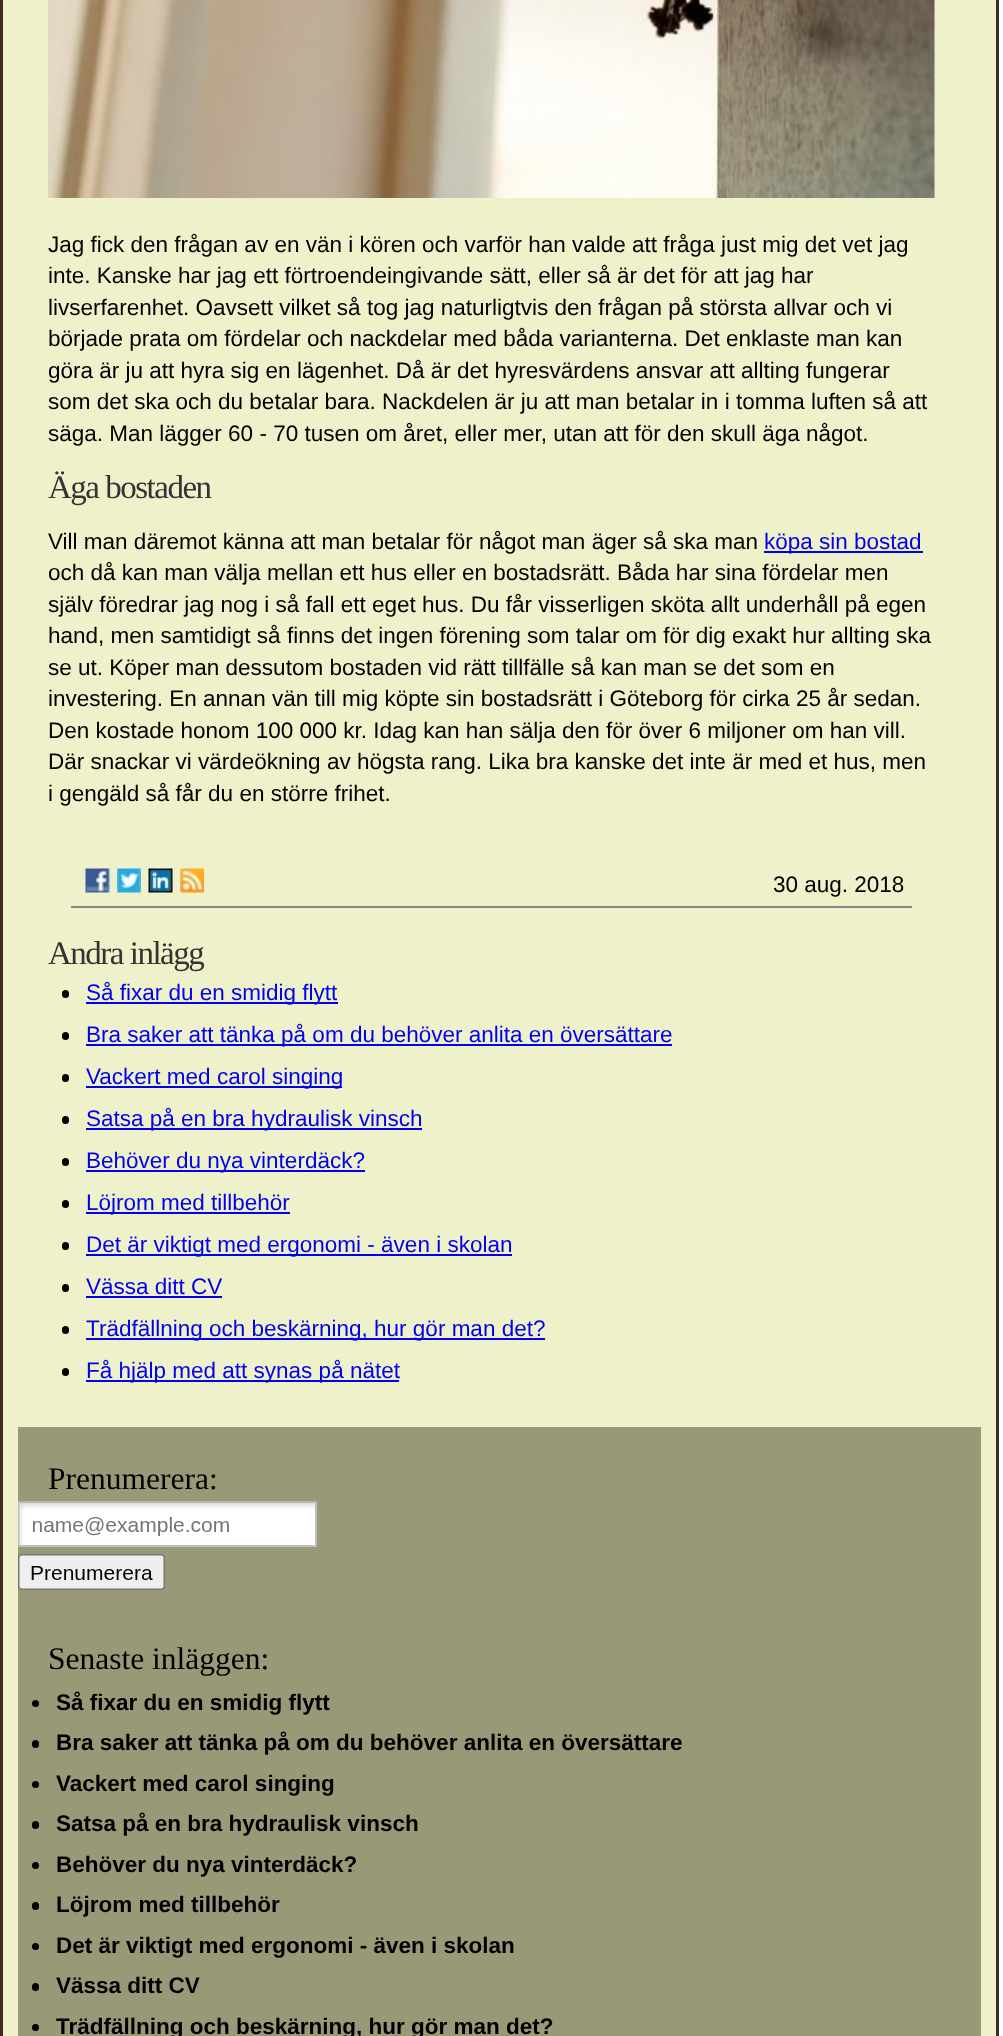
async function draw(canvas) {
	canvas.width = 1003;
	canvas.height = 2036;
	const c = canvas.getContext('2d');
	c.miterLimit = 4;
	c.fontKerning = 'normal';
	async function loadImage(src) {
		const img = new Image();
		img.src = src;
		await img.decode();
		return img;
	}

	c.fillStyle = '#fff';
	c.fillRect(0, 0, 1003, 2036);
	c.fillStyle = '#eff1ca';
	c.beginPath();
	c.rect(1.5, -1.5, 996, 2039);
	c.fill();
	c.strokeStyle = '#432724';
	c.lineWidth = 3;
	c.stroke();
	c.drawImage(await loadImage('img1.png'), 48, 0, 887, 198);
	c.font = '22.5px Liberation Sans';
	c.fillStyle = '#000';
	for (const [text, x, y] of [
		['Jag fick den frågan av en vän i kören och varför han valde att fråga just mig det vet jag', 48, 252],
		['inte. Kanske har jag ett förtroendeingivande sätt, eller så är det för att jag har', 48, 283],
		['livserfarenhet. Oavsett vilket så tog jag naturligtvis den frågan på största allvar och vi', 48, 315],
		['började prata om fördelar och nackdelar med båda varianterna. Det enklaste man kan', 48, 346],
		['göra är ju att hyra sig en lägenhet. Då är det hyresvärdens ansvar att allting fungerar', 48, 378],
		['som det ska och du betalar bara. Nackdelen är ju att man betalar in i tomma luften så att', 48, 409],
		['säga. Man lägger 60 - 70 tusen om året, eller mer, utan att för den skull äga något.', 48, 441],
	]) {
		c.fillText(text, x, y);
	}
	c.letterSpacing = '-1.5px';
	c.font = '33px Liberation Serif';
	c.fillStyle = '#333';
	c.fillText('Äga bostaden', 48, 498);
	c.letterSpacing = '0px';
	c.font = '22.5px Liberation Sans';
	c.fillStyle = '#000';
	c.fillText('Vill man däremot känna att man betalar för något man äger så ska man', 48, 549);
	c.fillStyle = '#00e';
	c.fillRect(764, 551, 159, 2);
	c.fillText('köpa sin bostad', 764, 549);
	c.fillStyle = '#000';
	for (const [text, x, y] of [
		['och då kan man välja mellan ett hus eller en bostadsrätt. Båda har sina fördelar men', 48, 580],
		['själv föredrar jag nog i så fall ett eget hus. Du får visserligen sköta allt underhåll på egen', 48, 612],
		['hand, men samtidigt så finns det ingen förening som talar om för dig exakt hur allting ska', 48, 643],
		['se ut. Köper man dessutom bostaden vid rätt tillfälle så kan man se det som en', 48, 675],
		['investering. En annan vän till mig köpte sin bostadsrätt i Göteborg för cirka 25 år sedan.', 48, 706],
		['Den kostade honom 100 000 kr. Idag kan han sälja den för över 6 miljoner om han vill.', 48, 738],
		['Där snackar vi värdeökning av högsta rang. Lika bra kanske det inte är med et hus, men', 48, 769],
		['i gengäld så får du en större frihet.', 48, 801],
	]) {
		c.fillText(text, x, y);
	}
	c.drawImage(await loadImage('img2.png'), 85, 868, 25, 25);
	c.drawImage(await loadImage('img3.png'), 117, 868, 24, 25);
	c.drawImage(await loadImage('img4.png'), 148, 868, 25, 25);
	c.drawImage(await loadImage('img5.png'), 180, 868, 24, 25);
	c.fillText('30 aug. 2018', 773, 892);
	c.fillStyle = '#888';
	c.fillRect(71, 906, 841, 2);
	c.letterSpacing = '-1.5px';
	c.font = '33px Liberation Serif';
	c.fillStyle = '#333';
	c.fillText('Andra inlägg', 48, 964);
	c.fillStyle = '#000';
	c.beginPath();
	c.roundRect(62, 990, 7, 8, 3.5);
	c.fill();
	c.fillStyle = '#00e';
	c.fillRect(86, 1002, 252, 2);
	c.letterSpacing = '0px';
	c.font = '22.5px Liberation Sans';
	c.fillText('Så fixar du en smidig flytt', 86, 1000);
	c.fillStyle = '#000';
	c.beginPath();
	c.roundRect(62, 1032, 7, 8, 3.5);
	c.fill();
	c.fillStyle = '#00e';
	c.fillRect(86, 1044, 586, 2);
	c.fillText('Bra saker att tänka på om du behöver anlita en översättare', 86, 1042);
	c.fillStyle = '#000';
	c.beginPath();
	c.roundRect(62, 1074, 7, 8, 3.5);
	c.fill();
	c.fillStyle = '#00e';
	c.fillRect(86, 1086, 256, 2);
	c.fillText('Vackert med carol singing', 86, 1084);
	c.fillStyle = '#000';
	c.beginPath();
	c.roundRect(62, 1116, 7, 8, 3.5);
	c.fill();
	c.fillStyle = '#00e';
	c.fillRect(86, 1128, 336, 2);
	c.fillText('Satsa på en bra hydraulisk vinsch', 86, 1126);
	c.fillStyle = '#000';
	c.beginPath();
	c.roundRect(62, 1158, 7, 8, 3.5);
	c.fill();
	c.fillStyle = '#00e';
	c.fillRect(86, 1170, 279, 2);
	c.fillText('Behöver du nya vinterdäck?', 86, 1168);
	c.fillStyle = '#000';
	c.beginPath();
	c.roundRect(62, 1200, 7, 8, 3.5);
	c.fill();
	c.fillStyle = '#00e';
	c.fillRect(86, 1212, 204, 2);
	c.fillText('Löjrom med tillbehör', 86, 1210);
	c.fillStyle = '#000';
	c.beginPath();
	c.roundRect(62, 1242, 7, 8, 3.5);
	c.fill();
	c.fillStyle = '#00e';
	c.fillRect(86, 1254, 426, 2);
	c.fillText('Det är viktigt med ergonomi - även i skolan', 86, 1252);
	c.fillStyle = '#000';
	c.beginPath();
	c.roundRect(62, 1284, 7, 8, 3.5);
	c.fill();
	c.fillStyle = '#00e';
	c.fillText('Vässa ditt CV', 86, 1294);
	c.fillRect(86, 1296, 136, 2);
	c.fillStyle = '#000';
	c.beginPath();
	c.roundRect(62, 1326, 7, 8, 3.5);
	c.fill();
	c.fillStyle = '#00e';
	c.fillRect(86, 1338, 459, 2);
	c.fillText('Trädfällning och beskärning, hur gör man det?', 86, 1336);
	c.fillStyle = '#000';
	c.beginPath();
	c.roundRect(62, 1368, 7, 8, 3.5);
	c.fill();
	c.fillStyle = '#00e';
	c.fillRect(86, 1380, 313, 2);
	c.fillText('Få hjälp med att synas på nätet', 86, 1378);
	c.fillStyle = '#997';
	c.fillRect(18, 1427, 963, 609);
	c.font = '31.5px Liberation Serif';
	c.fillStyle = '#000';
	c.fillText('Prenumerera:', 48, 1489);
	c.drawImage(await loadImage('img6.png'), 18, 1501, 299, 89);
	c.fillText('Senaste inläggen:', 48, 1669);
	c.beginPath();
	c.arc(35.5, 1703.5, 3.5, 0, 2 * Math.PI);
	c.fill();
	c.font = 'bold 22.5px Liberation Sans';
	c.fillText('Så fixar du en smidig flytt', 56, 1710);
	c.beginPath();
	c.roundRect(32, 1740, 7, 8, 3.5);
	c.fill();
	c.fillText('Bra saker att tänka på om du behöver anlita en översättare', 56, 1750);
	c.beginPath();
	c.arc(35.5, 1784.5, 3.5, 0, 2 * Math.PI);
	c.fill();
	c.fillText('Vackert med carol singing', 56, 1791);
	c.beginPath();
	c.roundRect(32, 1821, 7, 8, 3.5);
	c.fill();
	c.fillText('Satsa på en bra hydraulisk vinsch', 56, 1831);
	c.beginPath();
	c.arc(35.5, 1865.5, 3.5, 0, 2 * Math.PI);
	c.fill();
	c.fillText('Behöver du nya vinterdäck?', 56, 1872);
	c.beginPath();
	c.roundRect(32, 1902, 7, 8, 3.5);
	c.fill();
	c.fillText('Löjrom med tillbehör', 56, 1912);
	c.beginPath();
	c.arc(35.5, 1946.5, 3.5, 0, 2 * Math.PI);
	c.fill();
	c.fillText('Det är viktigt med ergonomi - även i skolan', 56, 1953);
	c.beginPath();
	c.roundRect(32, 1983, 7, 8, 3.5);
	c.fill();
	c.fillText('Vässa ditt CV', 56, 1993);
	c.beginPath();
	c.arc(35.5, 2027.5, 3.5, 0, 2 * Math.PI);
	c.fill();
	c.fillText('Trädfällning och beskärning, hur gör man det?', 56, 2034);
}

draw(document.querySelector('canvas'));
